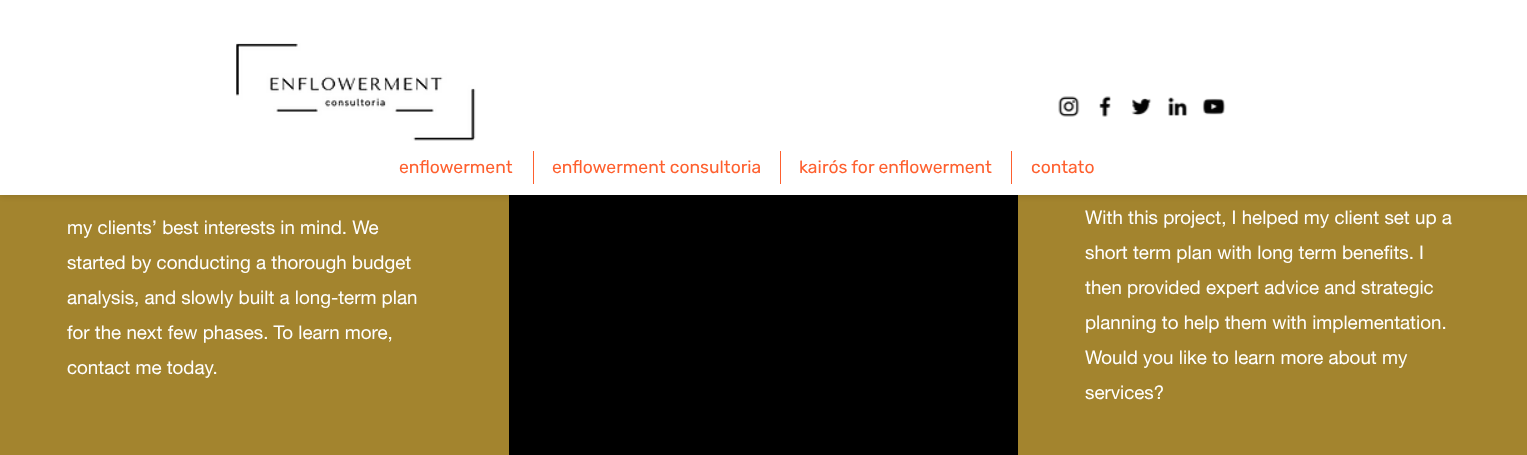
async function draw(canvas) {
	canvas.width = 1527;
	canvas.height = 455;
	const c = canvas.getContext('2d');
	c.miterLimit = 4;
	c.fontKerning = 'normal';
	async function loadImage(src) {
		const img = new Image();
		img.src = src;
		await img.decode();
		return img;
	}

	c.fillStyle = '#000';
	c.fillRect(0, 0, 1527, 455);
	c.fillStyle = '#a3842e';
	c.fillRect(0, 195, 509, 260);
	c.fillRect(1018, 195, 509, 260);
	c.fillStyle = '#00000029';
	c.filter = 'blur(3px)';
	c.beginPath();
	c.rect(0, 0, 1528, 195);
	c.fill();
	c.filter = 'none';
	c.fillStyle = '#fff';
	c.fillRect(0, 0, 1527, 195);
	c.drawImage(await loadImage('img1.png'), 236, 43, 240, 98);
	c.drawImage(await loadImage('img2.png'), 1058, 96, 22, 21);
	c.drawImage(await loadImage('img3.png'), 1099, 96, 12, 21);
	c.drawImage(await loadImage('img4.png'), 1131, 98, 21, 18);
	c.drawImage(await loadImage('img5.png'), 1168, 97, 20, 19);
	c.drawImage(await loadImage('img6.png'), 1202, 98, 24, 17);
	c.font = '17.5px Rubik';
	c.fillStyle = '#fe602f';
	c.fillText('enflowerment', 399, 173);
	c.fillRect(533, 151, 1, 33);
	c.fillText('enflowerment consultoria', 552, 173);
	c.fillRect(780, 151, 1, 33);
	c.fillText('kairós for enflowerment', 799, 173);
	c.fillRect(1011, 151, 1, 33);
	c.fillText('contato', 1031, 173);
	c.font = '18.75px helvetica neue';
	c.fillStyle = '#fff';
	for (const [text, x, y] of [
		['my clients’ best interests in mind. We', 67, 234],
		['started by conducting a thorough budget', 67, 269],
		['analysis, and slowly built a long-term plan', 67, 304],
		['for the next few phases. To learn more,', 67, 339],
		['contact me today.', 67, 374],
		['With this project, I helped my client set up a', 1085, 224],
		['short term plan with long term benefits. I', 1085, 259],
		['then provided expert advice and strategic', 1085, 294],
		['planning to help them with implementation.', 1085, 329],
		['Would you like to learn more about my', 1085, 364],
		['services?', 1085, 399],
	]) {
		c.fillText(text, x, y);
	}
}

draw(document.querySelector('canvas'));
